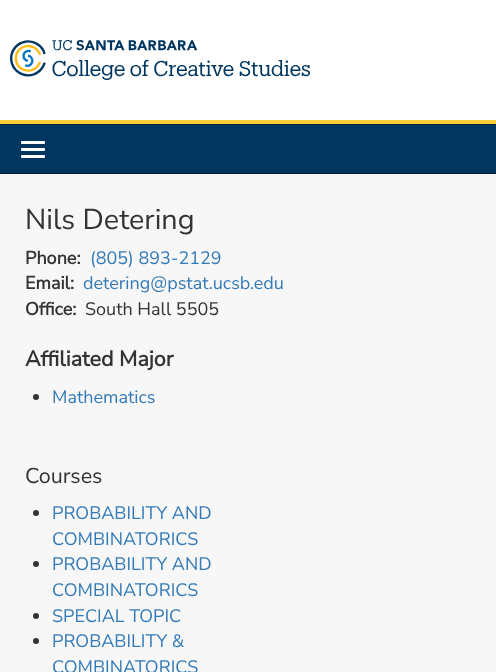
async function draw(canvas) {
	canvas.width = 496;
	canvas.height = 672;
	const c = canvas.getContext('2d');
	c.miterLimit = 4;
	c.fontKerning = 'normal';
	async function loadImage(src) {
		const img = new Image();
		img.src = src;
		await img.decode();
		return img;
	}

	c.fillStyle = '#fff';
	c.fillRect(0, 0, 496, 672);
	c.fillStyle = '#ffce34';
	c.fillRect(0, 120, 496, 4);
	c.drawImage(await loadImage('img1.png'), 10, 40, 300, 40);
	for (const [x, y, w, h, color] of [
		[0, 125, 496, 48, '#003660'],
		[0, 124, 496, 1, '#002643'],
		[0, 173, 496, 1, '#001b30'],
	]) {
		c.fillStyle = color;
		c.fillRect(x, y, w, h);
	}
	c.fillStyle = '#fff';
	c.beginPath();
	c.roundRect(21, 141, 24, 3, 1);
	c.fill();
	c.beginPath();
	c.roundRect(21, 148, 24, 3, 1);
	c.fill();
	c.beginPath();
	c.roundRect(21, 155, 24, 3, 1);
	c.fill();
	c.fillStyle = '#f7f7f7';
	c.fillRect(0, 174, 496, 498);
	c.font = '200 28.75px Nunito Sans';
	c.fillStyle = '#333';
	c.fillText('Nils Detering', 25, 229);
	c.font = 'bold 18px Nunito Sans';
	c.fillText('Phone:', 25, 264);
	c.font = '200 18px Nunito Sans';
	c.fillStyle = '#337ab7';
	c.fillText('(805) 893-2129', 90, 264);
	c.font = 'bold 18px Nunito Sans';
	c.fillStyle = '#333';
	c.fillText('Email:', 25, 289);
	c.font = '200 18px Nunito Sans';
	c.fillStyle = '#337ab7';
	c.fillText('detering@pstat.ucsb.edu', 83, 289);
	c.font = 'bold 18px Nunito Sans';
	c.fillStyle = '#333';
	c.fillText('Office:', 25, 315);
	c.font = '200 18px Nunito Sans';
	c.fillText('South Hall 5505', 85, 315);
	c.font = 'bold 21.5px Nunito Sans';
	c.fillText('Affiliated Major', 25, 366);
	c.beginPath();
	c.arc(36, 397, 3, 0, 2 * Math.PI);
	c.fill();
	c.font = '200 18px Nunito Sans';
	c.fillStyle = '#337ab7';
	c.fillText('Mathematics', 52, 403);
	c.font = '200 21.5px Nunito Sans';
	c.fillStyle = '#333';
	c.fillText('Courses', 25, 483);
	c.beginPath();
	c.arc(36, 513, 3, 0, 2 * Math.PI);
	c.fill();
	c.font = '200 18px Nunito Sans';
	c.fillStyle = '#337ab7';
	c.fillText('PROBABILITY AND', 52, 519);
	c.fillText('COMBINATORICS', 52, 545);
	c.fillStyle = '#333';
	c.beginPath();
	c.arc(36, 564, 3, 0, 2 * Math.PI);
	c.fill();
	c.fillStyle = '#337ab7';
	c.fillText('PROBABILITY AND', 52, 570);
	c.fillText('COMBINATORICS', 52, 596);
	c.fillStyle = '#333';
	c.beginPath();
	c.arc(36, 616, 3, 0, 2 * Math.PI);
	c.fill();
	c.fillStyle = '#337ab7';
	c.fillText('SPECIAL TOPIC', 52, 622);
	c.fillStyle = '#333';
	c.beginPath();
	c.arc(36, 641, 3, 0, 2 * Math.PI);
	c.fill();
	c.fillStyle = '#337ab7';
	c.fillText('PROBABILITY &', 52, 647);
	c.fillText('COMBINATORICS', 52, 673);
}

draw(document.querySelector('canvas'));
